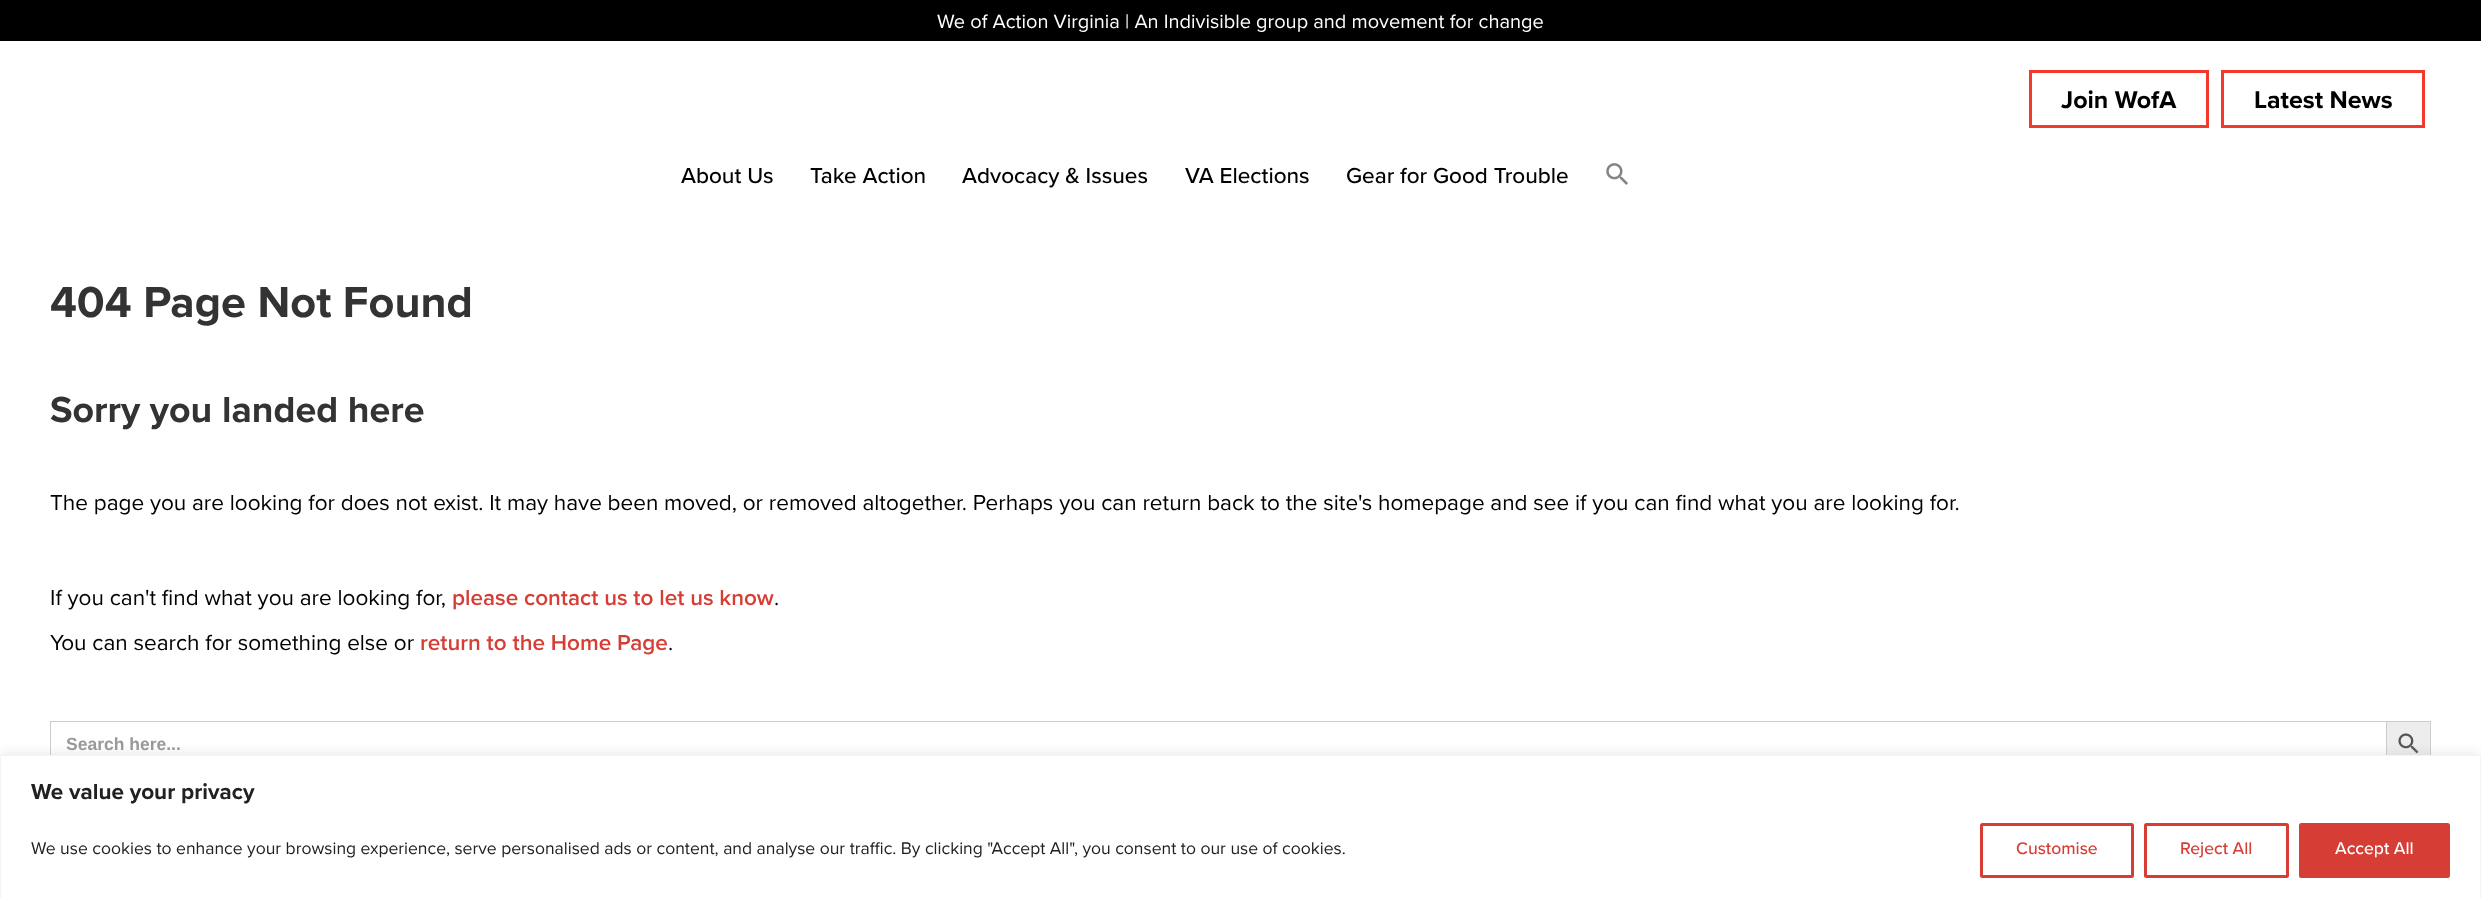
async function draw(canvas) {
	canvas.width = 2481;
	canvas.height = 898;
	const c = canvas.getContext('2d');
	c.miterLimit = 4;
	c.fontKerning = 'normal';
	async function loadImage(src) {
		const img = new Image();
		img.src = src;
		await img.decode();
		return img;
	}

	c.fillStyle = '#fff';
	c.fillRect(0, 0, 2481, 898);
	c.fillStyle = '#000';
	c.fillRect(0, 0, 2481, 41);
	c.font = '20px Proxima Nova';
	c.fillStyle = '#fff';
	c.fillText('We of Action Virginia | An Indivisible group and movement for change', 937, 28);
	c.strokeStyle = '#f3382c';
	c.lineWidth = 3;
	c.strokeRect(2030.5, 71.5, 177, 55);
	c.font = 'bold 25px Proxima Nova';
	c.fillStyle = '#000';
	c.fillText('Join WofA', 2061, 108);
	c.strokeRect(2222.5, 71.5, 201, 55);
	c.fillText('Latest News', 2254, 108);
	c.font = '500 22.5px Proxima Nova';
	for (const [text, x, y] of [
		['About Us', 681, 183],
		['Take Action', 810, 183],
		['Advocacy & Issues', 962, 183],
		['VA Elections', 1185, 183],
		['Gear for Good Trouble', 1346, 183],
	]) {
		c.fillText(text, x, y);
	}
	c.drawImage(await loadImage('img1.png'), 1606, 163, 22, 22);
	c.font = 'bold 45px Proxima Nova';
	c.fillStyle = '#333';
	c.fillText('404 Page Not Found', 50, 317);
	c.font = 'bold 37.5px Proxima Nova';
	c.fillText('Sorry you landed here', 50, 422);
	c.font = '22.5px Proxima Nova';
	c.fillStyle = '#000';
	c.fillText('The page you are looking for does not exist. It may have been moved, or removed altogether. Perhaps you can return back to the site\'s homepage and see if you can find what you are looking for.', 50, 510);
	c.fillText('If you can\'t find what you are looking for,', 50, 605);
	c.font = '600 22.5px Proxima Nova';
	c.fillStyle = '#d63d35';
	c.fillText('please contact us to let us know', 452, 605);
	c.font = '22.5px Proxima Nova';
	c.fillStyle = '#000';
	c.fillText('.', 774, 605);
	c.fillText('You can search for something else or', 50, 650);
	c.font = '600 22.5px Proxima Nova';
	c.fillStyle = '#d63d35';
	c.fillText('return to the Home Page', 420, 650);
	c.font = '22.5px Proxima Nova';
	c.fillStyle = '#000';
	c.fillText('.', 668, 650);
	c.fillStyle = '#ccc';
	c.fillRect(50, 721, 2336, 1);
	c.fillRect(50, 721, 1, 34);
	c.font = 'bold 17.5px Liberation Sans';
	c.fillStyle = '#999';
	c.fillText('Search here...', 66, 750);
	c.fillStyle = '#ededed';
	c.fillRect(2387, 722, 43, 33);
	c.strokeStyle = '#ccc';
	c.lineWidth = 1;
	c.strokeRect(2386.5, 721.5, 44, 44);
	c.drawImage(await loadImage('img2.png'), 2398, 733, 21, 21);
	c.fillStyle = '#acabab4d';
	c.filter = 'blur(6px)';
	c.beginPath();
	c.rect(0, 754, 2481, 144);
	c.fill();
	c.filter = 'none';
	c.fillStyle = '#fff';
	c.beginPath();
	c.rect(0.5, 755.5, 2480, 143);
	c.fill();
	c.strokeStyle = '#f4f4f4';
	c.stroke();
	c.font = 'bold 22.5px Proxima Nova';
	c.fillStyle = '#212121';
	c.fillText('We value your privacy', 31, 799);
	c.font = '17.5px Proxima Nova';
	c.fillText('We use cookies to enhance your browsing experience, serve personalised ads or content, and analyse our traffic. By clicking "Accept All", you consent to our use of cookies.', 31, 854);
	c.beginPath();
	c.roundRect(1981.5, 824.5, 151, 52, 1);
	c.strokeStyle = '#d63d35';
	c.lineWidth = 3;
	c.stroke();
	c.font = '500 17.5px Proxima Nova';
	c.fillStyle = '#d63d35';
	c.fillText('Customise', 2016, 854);
	c.beginPath();
	c.roundRect(2145.5, 824.5, 142, 52, 1);
	c.stroke();
	c.fillText('Reject All', 2180, 854);
	c.beginPath();
	c.roundRect(2300.5, 824.5, 148, 52, 1);
	c.fill();
	c.stroke();
	c.fillStyle = '#fff';
	c.fillText('Accept All', 2335, 854);
}

draw(document.querySelector('canvas'));
